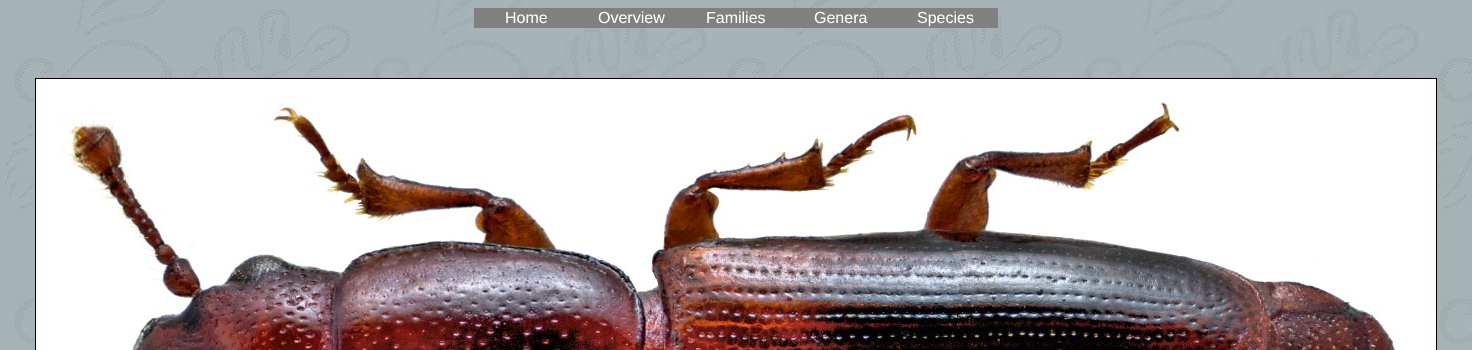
async function draw(canvas) {
	canvas.width = 1472;
	canvas.height = 350;
	const c = canvas.getContext('2d');
	c.miterLimit = 4;
	c.fontKerning = 'normal';
	async function loadImage(src) {
		const img = new Image();
		img.src = src;
		await img.decode();
		return img;
	}

	c.fillStyle = '#fff';
	c.fillRect(0, 0, 1472, 350);
	c.drawImage(await loadImage('img1.png'), 0, 0, 1472, 350);
	c.fillStyle = '#808080';
	c.fillRect(474, 8, 524, 20);
	c.font = '16px Liberation Sans';
	c.fillStyle = '#fff';
	for (const [text, x, y] of [
		['Home', 505, 23],
		['Overview', 598, 23],
		['Families', 706, 23],
		['Genera', 814, 23],
		['Species', 917, 23],
	]) {
		c.fillText(text, x, y);
	}
	c.strokeStyle = '#000';
	c.strokeRect(35.5, 78.5, 1401, 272);
	c.drawImage(await loadImage('img2.png'), 36, 79, 1400, 271);
}

draw(document.querySelector('canvas'));
